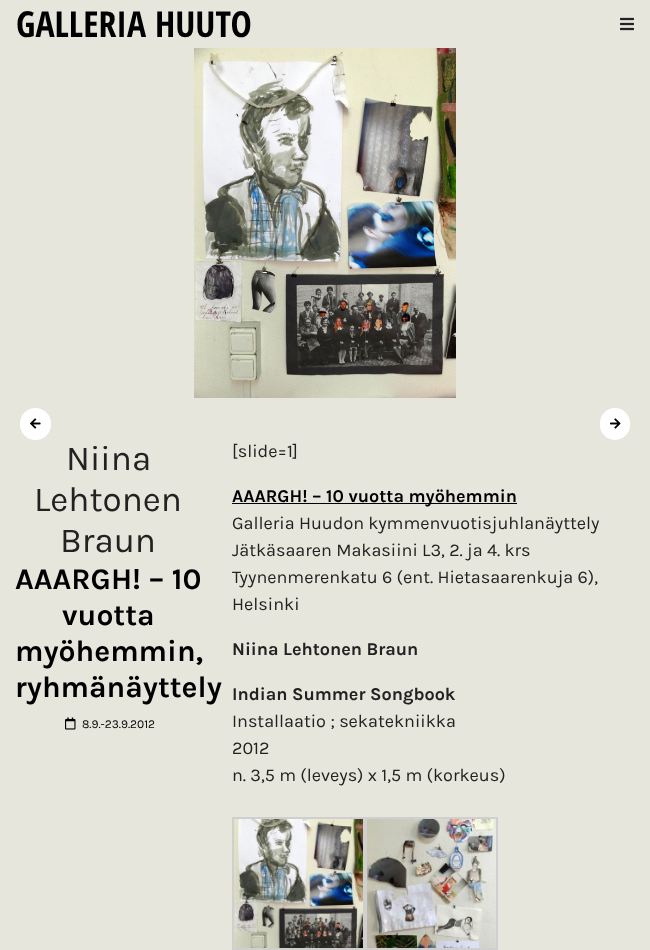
async function draw(canvas) {
	canvas.width = 650;
	canvas.height = 950;
	const c = canvas.getContext('2d');
	c.miterLimit = 4;
	c.fontKerning = 'normal';
	async function loadImage(src) {
		const img = new Image();
		img.src = src;
		await img.decode();
		return img;
	}

	c.fillStyle = '#e6e6dc';
	c.fillRect(0, 0, 650, 950);
	c.font = 'bold 35.75px Open Sans Condensed';
	c.fillStyle = '#000';
	c.fillText('GALLERIA HUUTO', 16, 37);
	c.drawImage(await loadImage('img1.png'), 620, 17, 14, 14);
	c.drawImage(await loadImage('img2.png'), 194, 48, 262, 350);
	c.fillStyle = '#fff';
	c.beginPath();
	c.roundRect(20, 408, 31, 32, 15.5);
	c.fill();
	c.drawImage(await loadImage('img3.png'), 30, 418, 11, 11);
	c.beginPath();
	c.roundRect(600, 408, 30, 32, 15);
	c.fill();
	c.drawImage(await loadImage('img4.png'), 610, 418, 11, 11);
	c.font = '35px Karla';
	c.fillStyle = '#222';
	for (const [text, x, y] of [
		['Niina', 66, 470],
		['Lehtonen', 34, 511],
		['Braun', 60, 552],
	]) {
		c.fillText(text, x, y);
	}
	c.font = 'bold 30px Karla';
	c.fillStyle = '#000';
	for (const [text, x, y] of [
		['AAARGH! – 10', 15, 589],
		['vuotta', 62, 625],
		['myöhemmin,', 15, 661],
		['ryhmänäyttely', 15, 697],
	]) {
		c.fillText(text, x, y);
	}
	c.drawImage(await loadImage('img5.png'), 65, 717, 11, 13);
	c.font = '12px Karla';
	c.fillText('8.9.-23.9.2012', 82, 728);
	c.font = '18px Karla';
	c.fillStyle = '#222';
	c.fillText('[slide=1]', 232, 457);
	c.fillStyle = '#000';
	c.fillRect(232, 503, 285, 1);
	c.font = 'bold 18px Karla';
	c.fillText('AAARGH! – 10 vuotta myöhemmin', 232, 502);
	c.font = '18px Karla';
	c.fillStyle = '#222';
	for (const [text, x, y] of [
		['Galleria Huudon kymmenvuotisjuhlanäyttely', 232, 529],
		['Jätkäsaaren Makasiini L3, 2. ja 4. krs', 232, 556],
		['Tyynenmerenkatu 6 (ent. Hietasaarenkuja 6),', 232, 583],
		['Helsinki', 232, 610],
	]) {
		c.fillText(text, x, y);
	}
	c.font = 'bold 18px Karla';
	c.fillText('Niina Lehtonen Braun', 232, 655);
	c.fillText('Indian Summer Songbook', 232, 700);
	c.font = '18px Karla';
	for (const [text, x, y] of [
		['Installaatio ; sekatekniikka', 232, 727],
		['2012', 232, 754],
		['n. 3,5 m (leveys) x 1,5 m (korkeus)', 232, 781],
	]) {
		c.fillText(text, x, y);
	}
	c.strokeStyle = '#cfcfcf';
	c.lineWidth = 2;
	c.strokeRect(233, 818, 131, 131);
	c.drawImage(await loadImage('img6.png'), 234, 819, 129, 129);
	c.strokeRect(366, 818, 131, 131);
	c.drawImage(await loadImage('img7.png'), 367, 819, 129, 129);
}

draw(document.querySelector('canvas'));
